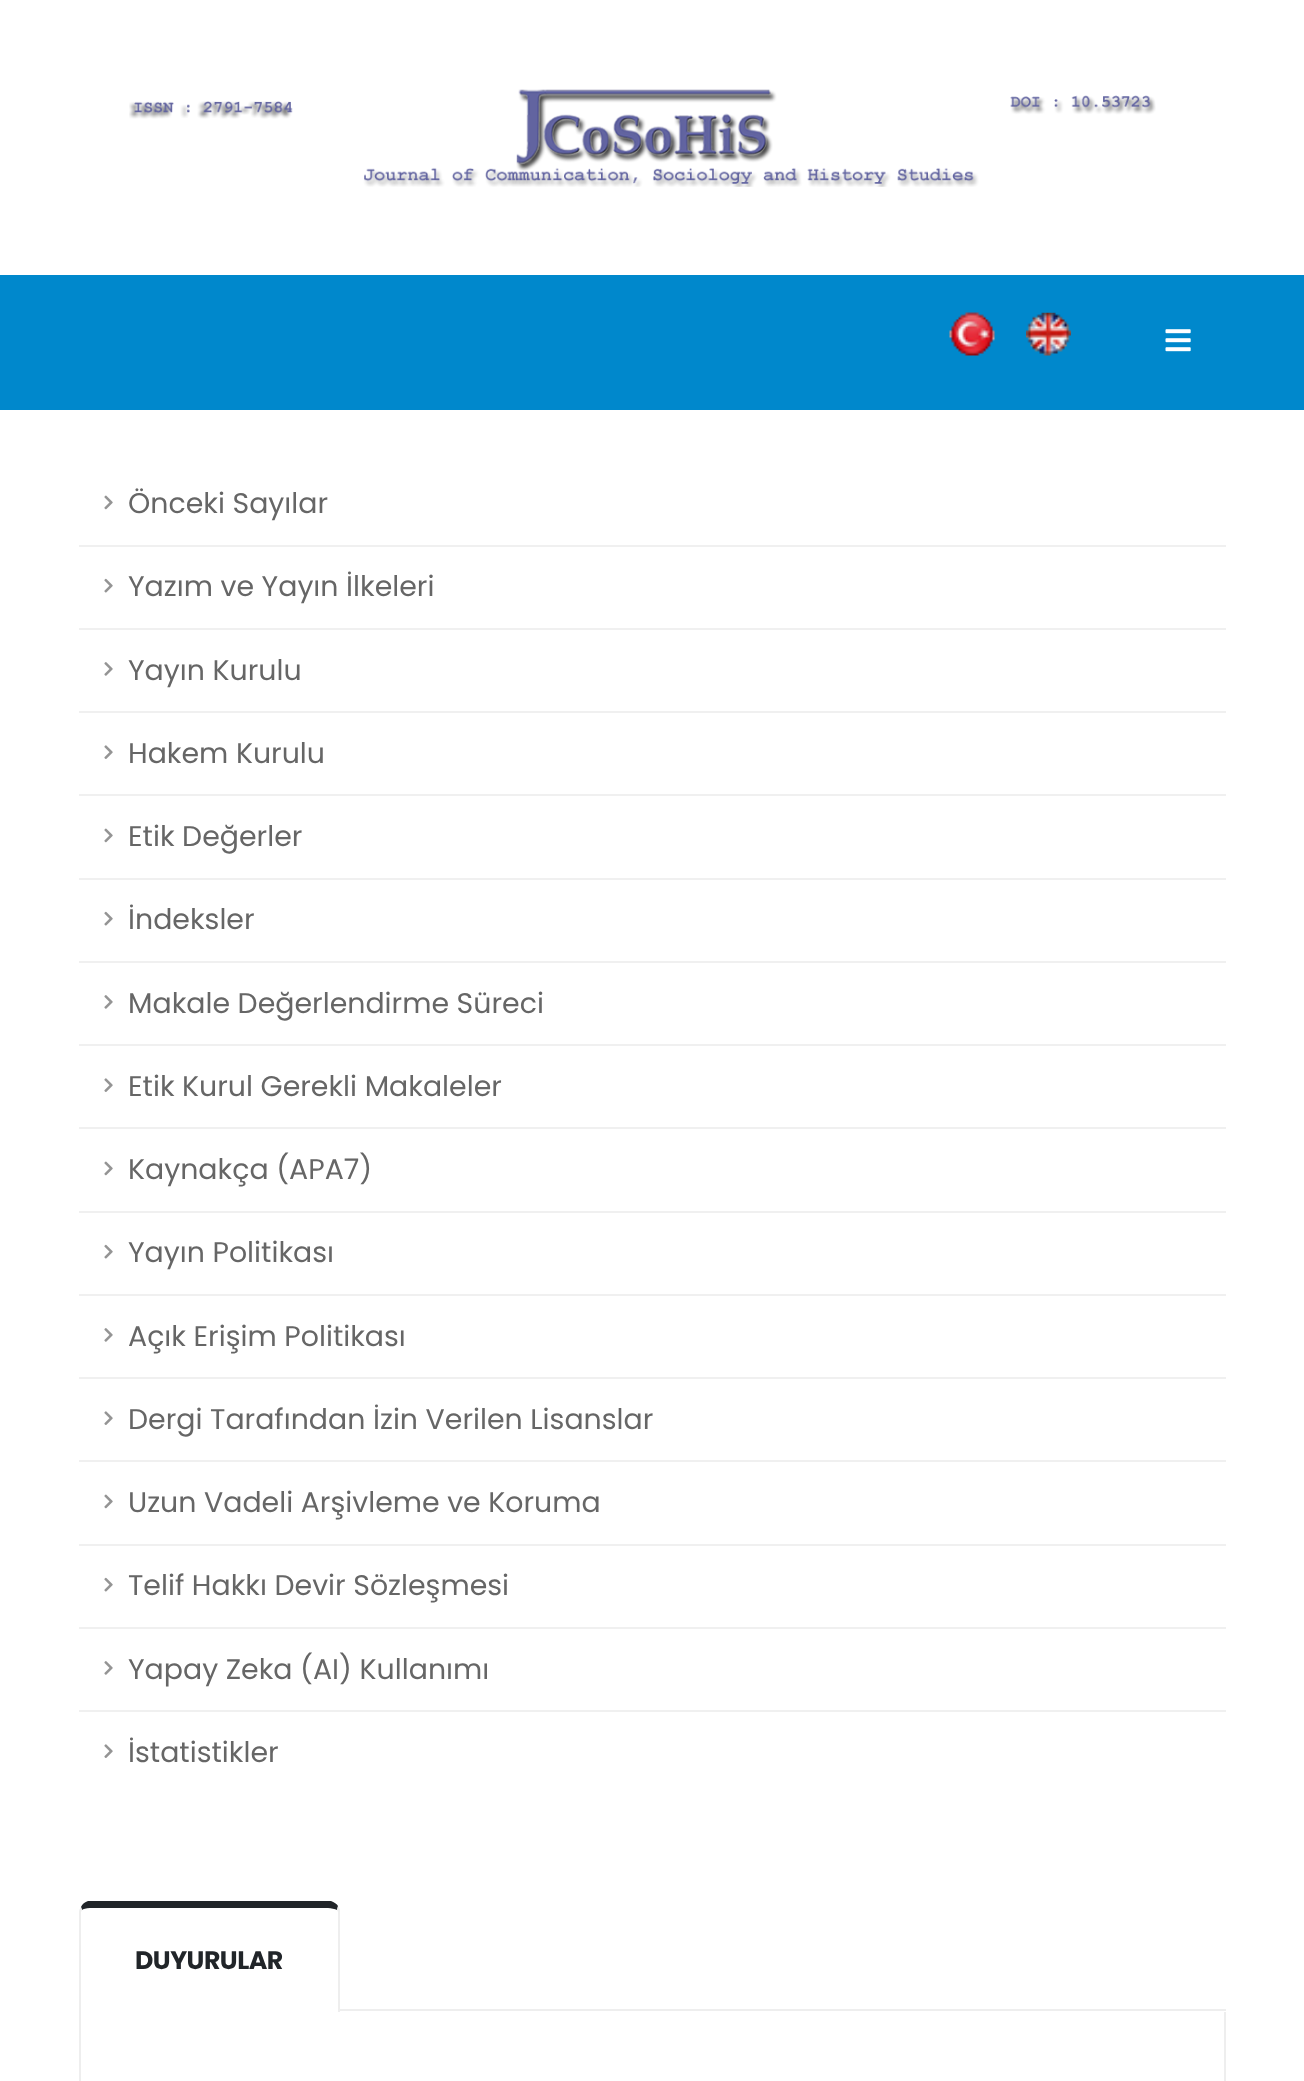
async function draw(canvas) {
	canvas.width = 1304;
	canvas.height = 2081;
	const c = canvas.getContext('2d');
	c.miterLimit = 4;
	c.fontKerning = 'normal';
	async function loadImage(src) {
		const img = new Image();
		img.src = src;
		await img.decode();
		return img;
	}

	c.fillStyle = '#fff';
	c.fillRect(0, 0, 1304, 2081);
	c.drawImage(await loadImage('img1.png'), 129, 89, 1027, 98);
	c.fillStyle = '#08c';
	c.fillRect(0, 275, 1304, 135);
	c.drawImage(await loadImage('img2.png'), 949, 312, 46, 44);
	c.drawImage(await loadImage('img3.png'), 1026, 312, 45, 44);
	c.drawImage(await loadImage('img4.png'), 1165, 329, 26, 23);
	c.fillStyle = '#f0f0f0';
	c.fillRect(79, 545, 1147, 2);
	c.drawImage(await loadImage('img5.png'), 104, 495, 9, 15);
	c.font = '28.4px Poppins';
	c.fillStyle = '#666';
	c.fillText('Önceki Sayılar', 128, 513);
	c.fillStyle = '#f0f0f0';
	c.fillRect(79, 628, 1147, 2);
	c.drawImage(await loadImage('img6.png'), 104, 578, 9, 15);
	c.fillStyle = '#666';
	c.fillText('Yazım ve Yayın İlkeleri', 128, 596);
	c.fillStyle = '#f0f0f0';
	c.fillRect(79, 711, 1147, 2);
	c.drawImage(await loadImage('img7.png'), 104, 662, 9, 14);
	c.fillStyle = '#666';
	c.fillText('Yayın Kurulu', 128, 680);
	c.fillStyle = '#f0f0f0';
	c.fillRect(79, 794, 1147, 2);
	c.drawImage(await loadImage('img8.png'), 104, 745, 9, 14);
	c.fillStyle = '#666';
	c.fillText('Hakem Kurulu', 128, 763);
	c.fillStyle = '#f0f0f0';
	c.fillRect(79, 878, 1147, 2);
	c.drawImage(await loadImage('img5.png'), 104, 828, 9, 15);
	c.fillStyle = '#666';
	c.fillText('Etik Değerler', 128, 846);
	c.fillStyle = '#f0f0f0';
	c.fillRect(79, 961, 1147, 2);
	c.drawImage(await loadImage('img6.png'), 104, 911, 9, 15);
	c.fillStyle = '#666';
	c.fillText('İndeksler', 128, 929);
	c.fillStyle = '#f0f0f0';
	c.fillRect(79, 1044, 1147, 2);
	c.drawImage(await loadImage('img7.png'), 104, 995, 9, 14);
	c.fillStyle = '#666';
	c.fillText('Makale Değerlendirme Süreci', 128, 1013);
	c.fillStyle = '#f0f0f0';
	c.fillRect(79, 1127, 1147, 2);
	c.drawImage(await loadImage('img8.png'), 104, 1078, 9, 14);
	c.fillStyle = '#666';
	c.fillText('Etik Kurul Gerekli Makaleler', 128, 1096);
	c.fillStyle = '#f0f0f0';
	c.fillRect(79, 1211, 1147, 2);
	c.drawImage(await loadImage('img5.png'), 104, 1161, 9, 15);
	c.fillStyle = '#666';
	c.fillText('Kaynakça (APA7)', 128, 1179);
	c.fillStyle = '#f0f0f0';
	c.fillRect(79, 1294, 1147, 2);
	c.drawImage(await loadImage('img6.png'), 104, 1244, 9, 15);
	c.fillStyle = '#666';
	c.fillText('Yayın Politikası', 128, 1262);
	c.fillStyle = '#f0f0f0';
	c.fillRect(79, 1377, 1147, 2);
	c.drawImage(await loadImage('img7.png'), 104, 1328, 9, 14);
	c.fillStyle = '#666';
	c.fillText('Açık Erişim Politikası', 128, 1346);
	c.fillStyle = '#f0f0f0';
	c.fillRect(79, 1460, 1147, 2);
	c.drawImage(await loadImage('img8.png'), 104, 1411, 9, 14);
	c.fillStyle = '#666';
	c.fillText('Dergi Tarafından İzin Verilen Lisanslar', 128, 1429);
	c.fillStyle = '#f0f0f0';
	c.fillRect(79, 1544, 1147, 2);
	c.drawImage(await loadImage('img5.png'), 104, 1494, 9, 15);
	c.fillStyle = '#666';
	c.fillText('Uzun Vadeli Arşivleme ve Koruma', 128, 1512);
	c.fillStyle = '#f0f0f0';
	c.fillRect(79, 1627, 1147, 2);
	c.drawImage(await loadImage('img6.png'), 104, 1577, 9, 15);
	c.fillStyle = '#666';
	c.fillText('Telif Hakkı Devir Sözleşmesi', 128, 1595);
	c.fillStyle = '#f0f0f0';
	c.fillRect(79, 1710, 1147, 2);
	c.drawImage(await loadImage('img7.png'), 104, 1661, 9, 14);
	c.fillStyle = '#666';
	c.fillText('Yapay Zeka (AI) Kullanımı', 128, 1679);
	c.drawImage(await loadImage('img8.png'), 104, 1744, 9, 14);
	c.fillText('İstatistikler', 128, 1762);
	c.fillStyle = '#eee';
	c.fillRect(340, 2009, 886, 2);
	c.fillStyle = '#212529';
	c.beginPath();
	c.moveTo(90, 1908);
	c.bezierCurveTo(86, 1908, 83, 1909, 82, 1910);
	c.lineTo(81, 1907);
	c.bezierCurveTo(82, 1904, 85, 1902, 88, 1901);
	c.lineTo(331, 1901);
	c.bezierCurveTo(334, 1902, 337, 1904, 338, 1906);
	c.lineTo(337, 1910);
	c.bezierCurveTo(335, 1909, 331, 1908, 328, 1908);
	c.closePath();
	c.fill();
	c.fillStyle = '#eee';
	c.beginPath();
	c.moveTo(338, 2012);
	c.lineTo(338, 1912);
	c.lineTo(337, 1910);
	c.lineTo(338, 1906);
	c.lineTo(340, 1910);
	c.lineTo(340, 2012);
	c.closePath();
	c.fill();
	c.beginPath();
	c.moveTo(79, 2012);
	c.lineTo(79, 1912);
	c.bezierCurveTo(79, 1910, 80, 1908, 81, 1907);
	c.lineTo(82, 1910);
	c.lineTo(81, 1912);
	c.lineTo(81, 2012);
	c.closePath();
	c.fill();
	c.letterSpacing = '-0.5px';
	c.font = 'bold 25.25px Poppins';
	c.fillStyle = '#212529';
	c.fillText('DUYURULAR', 135, 1969);
	c.fillStyle = '#eee';
	c.beginPath();
	c.moveTo(79, 2012);
	c.lineTo(1226, 2012);
	c.lineTo(1226, 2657);
	c.bezierCurveTo(1226, 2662, 1222, 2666, 1217, 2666);
	c.lineTo(88, 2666);
	c.bezierCurveTo(83, 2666, 79, 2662, 79, 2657);
	c.closePath();
	c.moveTo(81, 2012);
	c.lineTo(1224, 2012);
	c.lineTo(1224, 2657);
	c.bezierCurveTo(1224, 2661, 1221, 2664, 1217, 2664);
	c.lineTo(88, 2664);
	c.bezierCurveTo(84, 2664, 81, 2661, 81, 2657);
	c.closePath();
	c.fill('evenodd');
}

draw(document.querySelector('canvas'));
